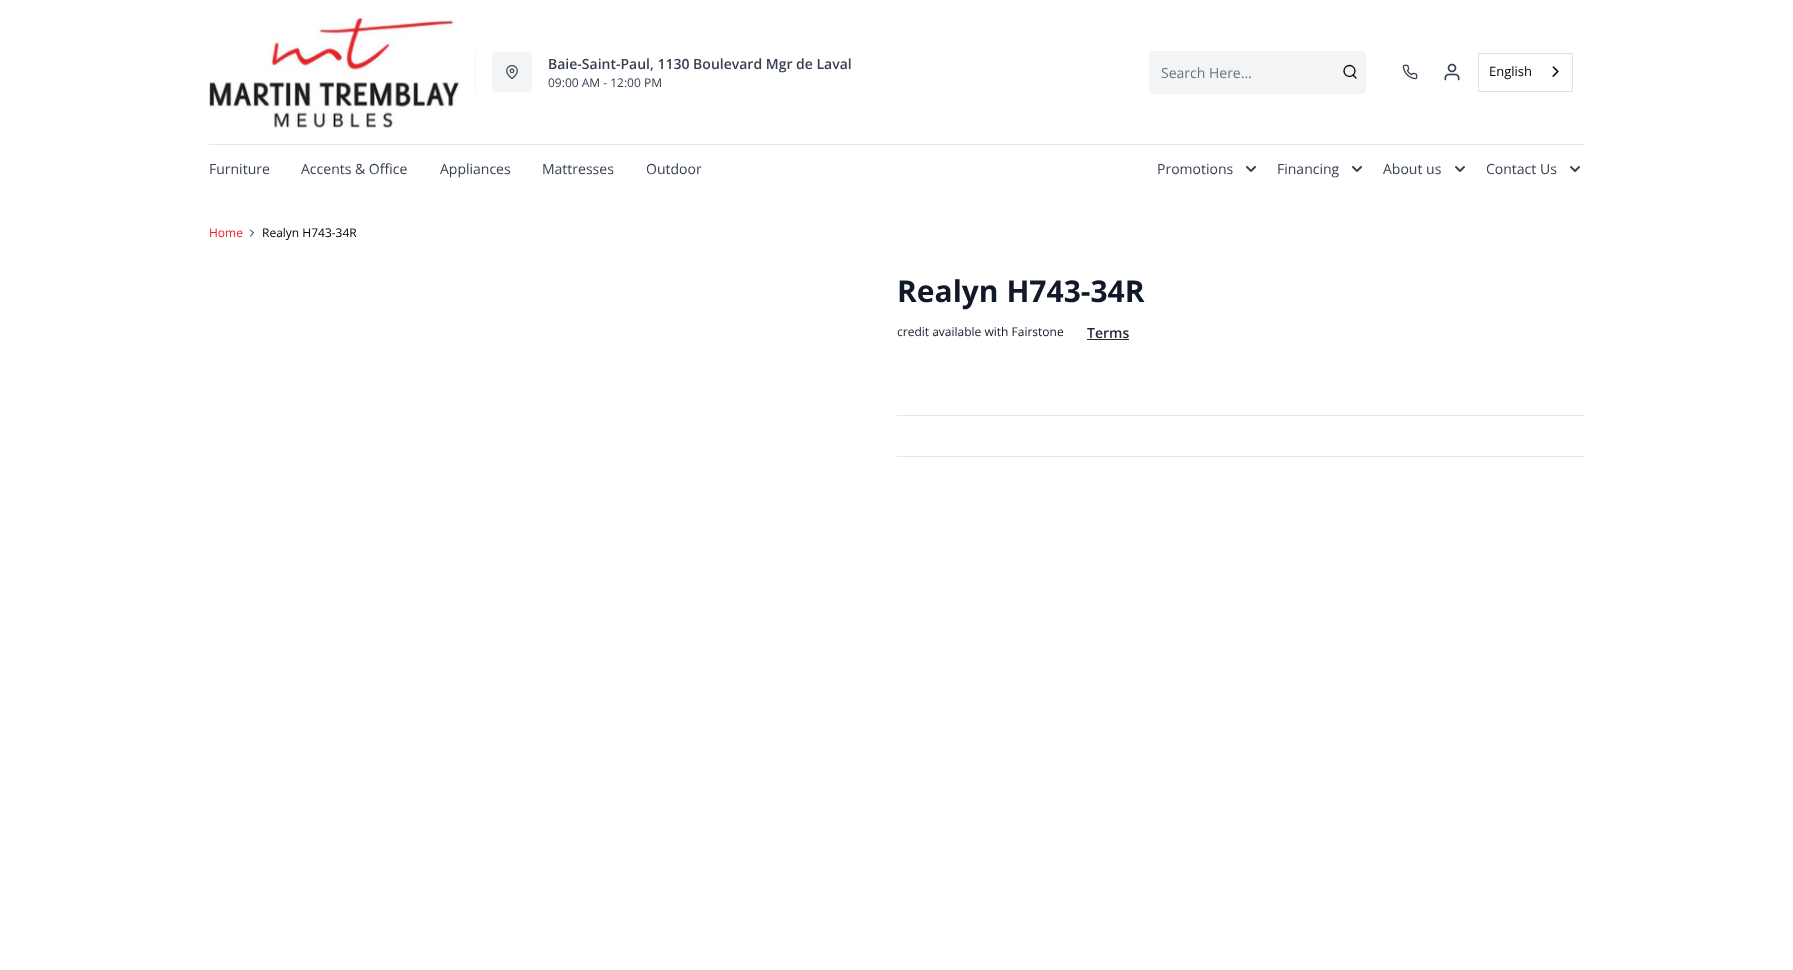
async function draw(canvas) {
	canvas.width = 1793;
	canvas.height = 970;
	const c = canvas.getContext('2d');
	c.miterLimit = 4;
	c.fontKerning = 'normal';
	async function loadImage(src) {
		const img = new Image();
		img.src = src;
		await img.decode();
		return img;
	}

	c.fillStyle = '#fff';
	c.fillRect(0, 0, 1793, 970);
	c.drawImage(await loadImage('img1.png'), 209, 15, 250, 114);
	c.fillStyle = '#f3f4f6';
	c.fillRect(475, 52, 1, 40);
	c.beginPath();
	c.roundRect(492, 52, 40, 40, 4);
	c.fill();
	c.drawImage(await loadImage('img2.png'), 506, 65, 12, 14);
	c.font = '600 14px Open Sans';
	c.fillStyle = '#374151';
	c.fillText('Baie-Saint-Paul, 1130 Boulevard Mgr de Laval', 548, 69);
	c.font = '12px Open Sans';
	c.fillText('09:00 AM - 12:00 PM', 548, 87);
	c.fillStyle = '#f3f4f6';
	c.beginPath();
	c.roundRect(1149, 51, 217, 43, 4);
	c.fill();
	c.font = '14px Open Sans';
	c.fillStyle = '#6b7280';
	c.fillText('Search Here...', 1161, 78);
	c.beginPath();
	c.arc(1349.5, 71, 5.5, 0, 2 * Math.PI);
	c.strokeStyle = '#000';
	c.lineWidth = 1.3;
	c.stroke();
	c.beginPath();
	c.moveTo(1356, 78);
	c.lineTo(1353, 75);
	c.lineCap = 'round';
	c.lineJoin = 'round';
	c.stroke();
	c.drawImage(await loadImage('img3.png'), 1402, 64, 16, 16);
	c.drawImage(await loadImage('img4.png'), 1444, 63, 16, 18);
	c.strokeStyle = '#e0e0e0';
	c.lineWidth = 1;
	c.lineJoin = 'miter';
	c.strokeRect(1478.5, 53.5, 94, 38);
	c.font = '13px Open Sans';
	c.fillStyle = '#000';
	c.fillText('English', 1489, 76);
	c.drawImage(await loadImage('img5.png'), 1552, 66, 7, 11);
	c.fillStyle = '#e5e7eb';
	c.fillRect(209, 144, 1376, 1);
	c.font = '14px Open Sans';
	c.fillStyle = '#374151';
	for (const [text, x, y] of [
		['Furniture', 209, 174],
		['Accents & Office', 301, 174],
		['Appliances', 440, 174],
		['Mattresses', 542, 174],
		['Outdoor', 646, 174],
		['Promotions', 1157, 174],
	]) {
		c.fillText(text, x, y);
	}
	c.drawImage(await loadImage('img6.png'), 1246, 166, 10, 6);
	c.fillText('Financing', 1277, 174);
	c.drawImage(await loadImage('img6.png'), 1352, 166, 10, 6);
	c.fillText('About us', 1383, 174);
	c.drawImage(await loadImage('img6.png'), 1455, 166, 10, 6);
	c.fillText('Contact Us', 1486, 174);
	c.drawImage(await loadImage('img6.png'), 1570, 166, 10, 6);
	c.font = '12px Open Sans';
	c.fillStyle = '#ed1e18';
	c.fillText('Home', 209, 237);
	c.beginPath();
	c.moveTo(250.5, 236);
	c.lineTo(253.5, 233);
	c.lineTo(250.5, 230);
	c.strokeStyle = '#000';
	c.lineJoin = 'round';
	c.stroke();
	c.fillStyle = '#000';
	c.fillText('Realyn H743-34R', 262, 237);
	c.font = 'bold 30px Open Sans';
	c.fillStyle = '#111827';
	c.fillText('Realyn H743-34R', 897, 302);
	c.font = '12px Open Sans';
	c.fillText('credit available with Fairstone', 897, 336);
	c.font = '600 14px Open Sans';
	c.fillStyle = '#1f2937';
	c.fillText('Terms', 1087, 338);
	for (const [x, y, w, h, color] of [
		[1087, 339, 42, 1, '#1f2937'],
		[897, 415, 688, 1, '#e5e7eb'],
		[897, 456, 688, 1, '#e5e7eb'],
	]) {
		c.fillStyle = color;
		c.fillRect(x, y, w, h);
	}
}

draw(document.querySelector('canvas'));
